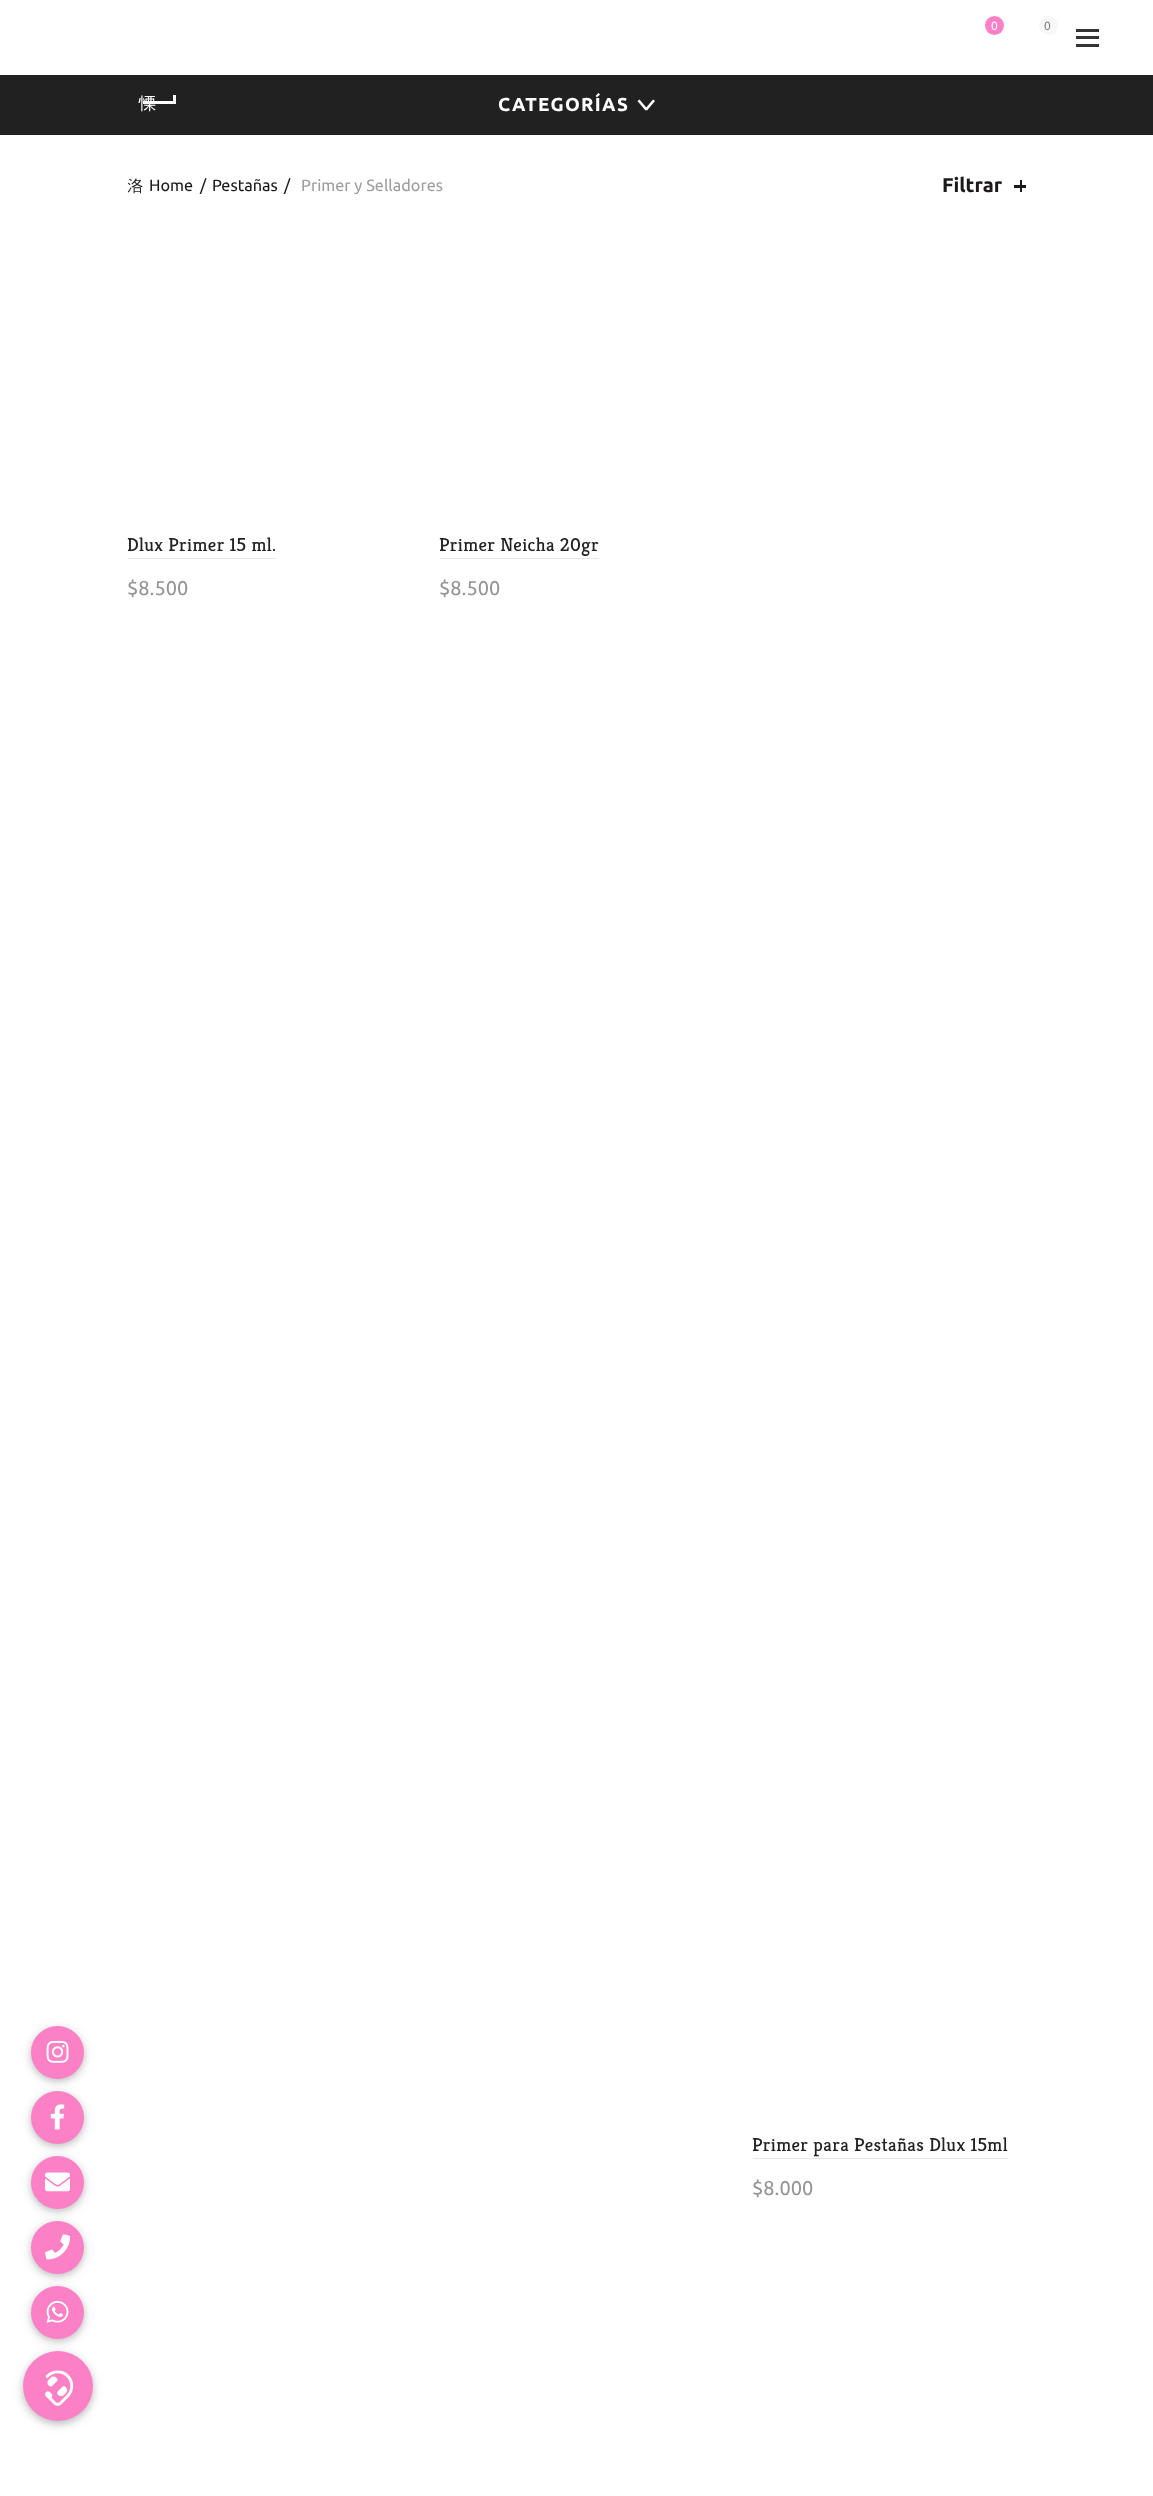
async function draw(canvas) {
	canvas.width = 1153;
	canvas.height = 2496;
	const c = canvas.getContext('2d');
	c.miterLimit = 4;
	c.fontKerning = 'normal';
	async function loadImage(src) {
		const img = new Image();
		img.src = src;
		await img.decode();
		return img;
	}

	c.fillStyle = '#fff';
	c.fillRect(0, 0, 1153, 2496);
	c.fillStyle = '#0000001f';
	c.filter = 'blur(6px)';
	c.beginPath();
	c.roundRect(31, 2289, 53, 52, 26);
	c.fill();
	c.filter = 'none';
	c.fillStyle = '#00000029';
	c.filter = 'blur(3px)';
	c.beginPath();
	c.roundRect(31, 2289, 53, 52, 26);
	c.fill();
	c.filter = 'none';
	c.fillStyle = '#fc80c6';
	c.beginPath();
	c.arc(57.5, 2312.5, 26.5, 0, 2 * Math.PI);
	c.fill();
	c.fillStyle = '#0000001f';
	c.filter = 'blur(6px)';
	c.beginPath();
	c.roundRect(31, 2224, 53, 52, 26);
	c.fill();
	c.filter = 'none';
	c.fillStyle = '#00000029';
	c.filter = 'blur(3px)';
	c.beginPath();
	c.roundRect(31, 2224, 53, 52, 26);
	c.fill();
	c.filter = 'none';
	c.fillStyle = '#fc80c6';
	c.beginPath();
	c.arc(57.5, 2247.5, 26.5, 0, 2 * Math.PI);
	c.fill();
	c.fillStyle = '#0000001f';
	c.filter = 'blur(6px)';
	c.beginPath();
	c.roundRect(31, 2159, 53, 52, 26);
	c.fill();
	c.filter = 'none';
	c.fillStyle = '#00000029';
	c.filter = 'blur(3px)';
	c.beginPath();
	c.roundRect(31, 2159, 53, 52, 26);
	c.fill();
	c.filter = 'none';
	c.fillStyle = '#fc80c6';
	c.beginPath();
	c.arc(57.5, 2182.5, 26.5, 0, 2 * Math.PI);
	c.fill();
	c.fillStyle = '#0000001f';
	c.filter = 'blur(6px)';
	c.beginPath();
	c.roundRect(31, 2094, 53, 52, 26);
	c.fill();
	c.filter = 'none';
	c.fillStyle = '#00000029';
	c.filter = 'blur(3px)';
	c.beginPath();
	c.roundRect(31, 2094, 53, 52, 26);
	c.fill();
	c.filter = 'none';
	c.fillStyle = '#fc80c6';
	c.beginPath();
	c.arc(57.5, 2117.5, 26.5, 0, 2 * Math.PI);
	c.fill();
	c.fillStyle = '#0000001f';
	c.filter = 'blur(6px)';
	c.beginPath();
	c.roundRect(31, 2029, 53, 52, 26);
	c.fill();
	c.filter = 'none';
	c.fillStyle = '#00000029';
	c.filter = 'blur(3px)';
	c.beginPath();
	c.roundRect(31, 2029, 53, 52, 26);
	c.fill();
	c.filter = 'none';
	c.fillStyle = '#fc80c6';
	c.beginPath();
	c.arc(57.5, 2052.5, 26.5, 0, 2 * Math.PI);
	c.fill();
	c.drawImage(await loadImage('img1.png'), 46, 2040, 23, 23);
	c.drawImage(await loadImage('img2.png'), 50, 2104, 15, 26);
	c.drawImage(await loadImage('img3.png'), 45, 2172, 25, 20);
	c.drawImage(await loadImage('img4.png'), 45, 2234, 25, 26);
	c.drawImage(await loadImage('img5.png'), 46, 2300, 23, 23);
	c.fillStyle = '#0000001f';
	c.filter = 'blur(6px)';
	c.beginPath();
	c.roundRect(23, 2354, 70, 70, 35);
	c.fill();
	c.filter = 'none';
	c.fillStyle = '#00000029';
	c.filter = 'blur(3px)';
	c.beginPath();
	c.roundRect(23, 2354, 70, 70, 35);
	c.fill();
	c.filter = 'none';
	c.fillStyle = '#fc80c6';
	c.beginPath();
	c.arc(58, 2386, 35, 0, 2 * Math.PI);
	c.fill();
	c.drawImage(await loadImage('img6.png'), 45, 2370, 29, 36);
	c.beginPath();
	c.arc(994.5, 25.5, 9.5, 0, 2 * Math.PI);
	c.fill();
	c.font = '12px Ubuntu';
	c.fillStyle = '#fff';
	c.fillText('0', 991, 30);
	c.fillStyle = '#f7f7f7';
	c.beginPath();
	c.arc(1048.5, 25.5, 9.5, 0, 2 * Math.PI);
	c.fill();
	c.fillStyle = '#7e7e7e';
	c.fillText('0', 1044, 30);
	for (const [x, y, w, h, color] of [
		[1076, 36, 23, 3, '#333'],
		[1076, 29, 23, 3, '#333'],
		[1076, 44, 23, 3, '#333'],
		[0, 75, 1153, 60, '#212121'],
		[143, 101, 31, 3, '#fff'],
	]) {
		c.fillStyle = color;
		c.fillRect(x, y, w, h);
	}
	c.font = '500 18px WenQuanYi Zen Hei';
	c.fillText('慄', 138, 109);
	c.fillRect(173, 95, 3, 9);
	c.letterSpacing = '1.25px';
	c.font = 'bold 18.75px Ubuntu';
	c.fillText('CATEGORÍAS', 498, 111);
	c.beginPath();
	c.moveTo(645, 109);
	c.lineTo(653, 99.5);
	c.lineTo(655, 101);
	c.lineTo(647, 110.5);
	c.closePath();
	c.fill();
	c.beginPath();
	c.moveTo(639.5, 99.5);
	c.lineTo(647.5, 109);
	c.lineTo(645.5, 110.5);
	c.lineTo(637.5, 101);
	c.closePath();
	c.fill();
	c.letterSpacing = '0px';
	c.font = '500 16.25px WenQuanYi Zen Hei';
	c.fillStyle = '#1b1919';
	c.fillText('洛', 127, 191);
	c.font = '16.25px Ubuntu';
	for (const [text, x, y] of [
		['Home', 149, 191],
		['/', 200, 191],
		['Pestañas', 212, 191],
		['/', 284, 191],
	]) {
		c.fillText(text, x, y);
	}
	c.fillStyle = '#9e9e9e';
	c.fillText('Primer y Selladores', 301, 191);
	c.font = 'bold 20px Ubuntu';
	c.fillStyle = '#1b1919';
	c.fillText('Filtrar', 942, 192);
	c.fillRect(1020, 180, 2, 12);
	c.fillRect(1014, 185, 12, 3);
	c.letterSpacing = '0.4px';
	c.font = '18.75px Kreon';
	c.fillStyle = '#252222';
	c.fillText('Dlux Primer 15 ml.', 127, 551);
	c.fillStyle = '#e6e6e6';
	c.fillRect(128, 558, 148, 1);
	c.letterSpacing = '0px';
	c.font = '20px Ubuntu';
	c.fillStyle = '#949494';
	c.fillText('$8.500', 127, 595);
	c.letterSpacing = '0.4px';
	c.font = '18.75px Kreon';
	c.fillStyle = '#252222';
	c.fillText('Primer Neicha 20gr', 439, 551);
	c.fillStyle = '#e6e6e6';
	c.fillRect(440, 558, 159, 1);
	c.letterSpacing = '0px';
	c.font = '20px Ubuntu';
	c.fillStyle = '#949494';
	c.fillText('$8.500', 439, 595);
	c.letterSpacing = '0.4px';
	c.font = '18.75px Kreon';
	c.fillStyle = '#252222';
	c.fillText('Primer para Pestañas Dlux 15ml', 752, 2151);
	c.fillStyle = '#e6e6e6';
	c.fillRect(753, 2158, 255, 1);
	c.letterSpacing = '0px';
	c.font = '20px Ubuntu';
	c.fillStyle = '#949494';
	c.fillText('$8.000', 752, 2195);
}

draw(document.querySelector('canvas'));
